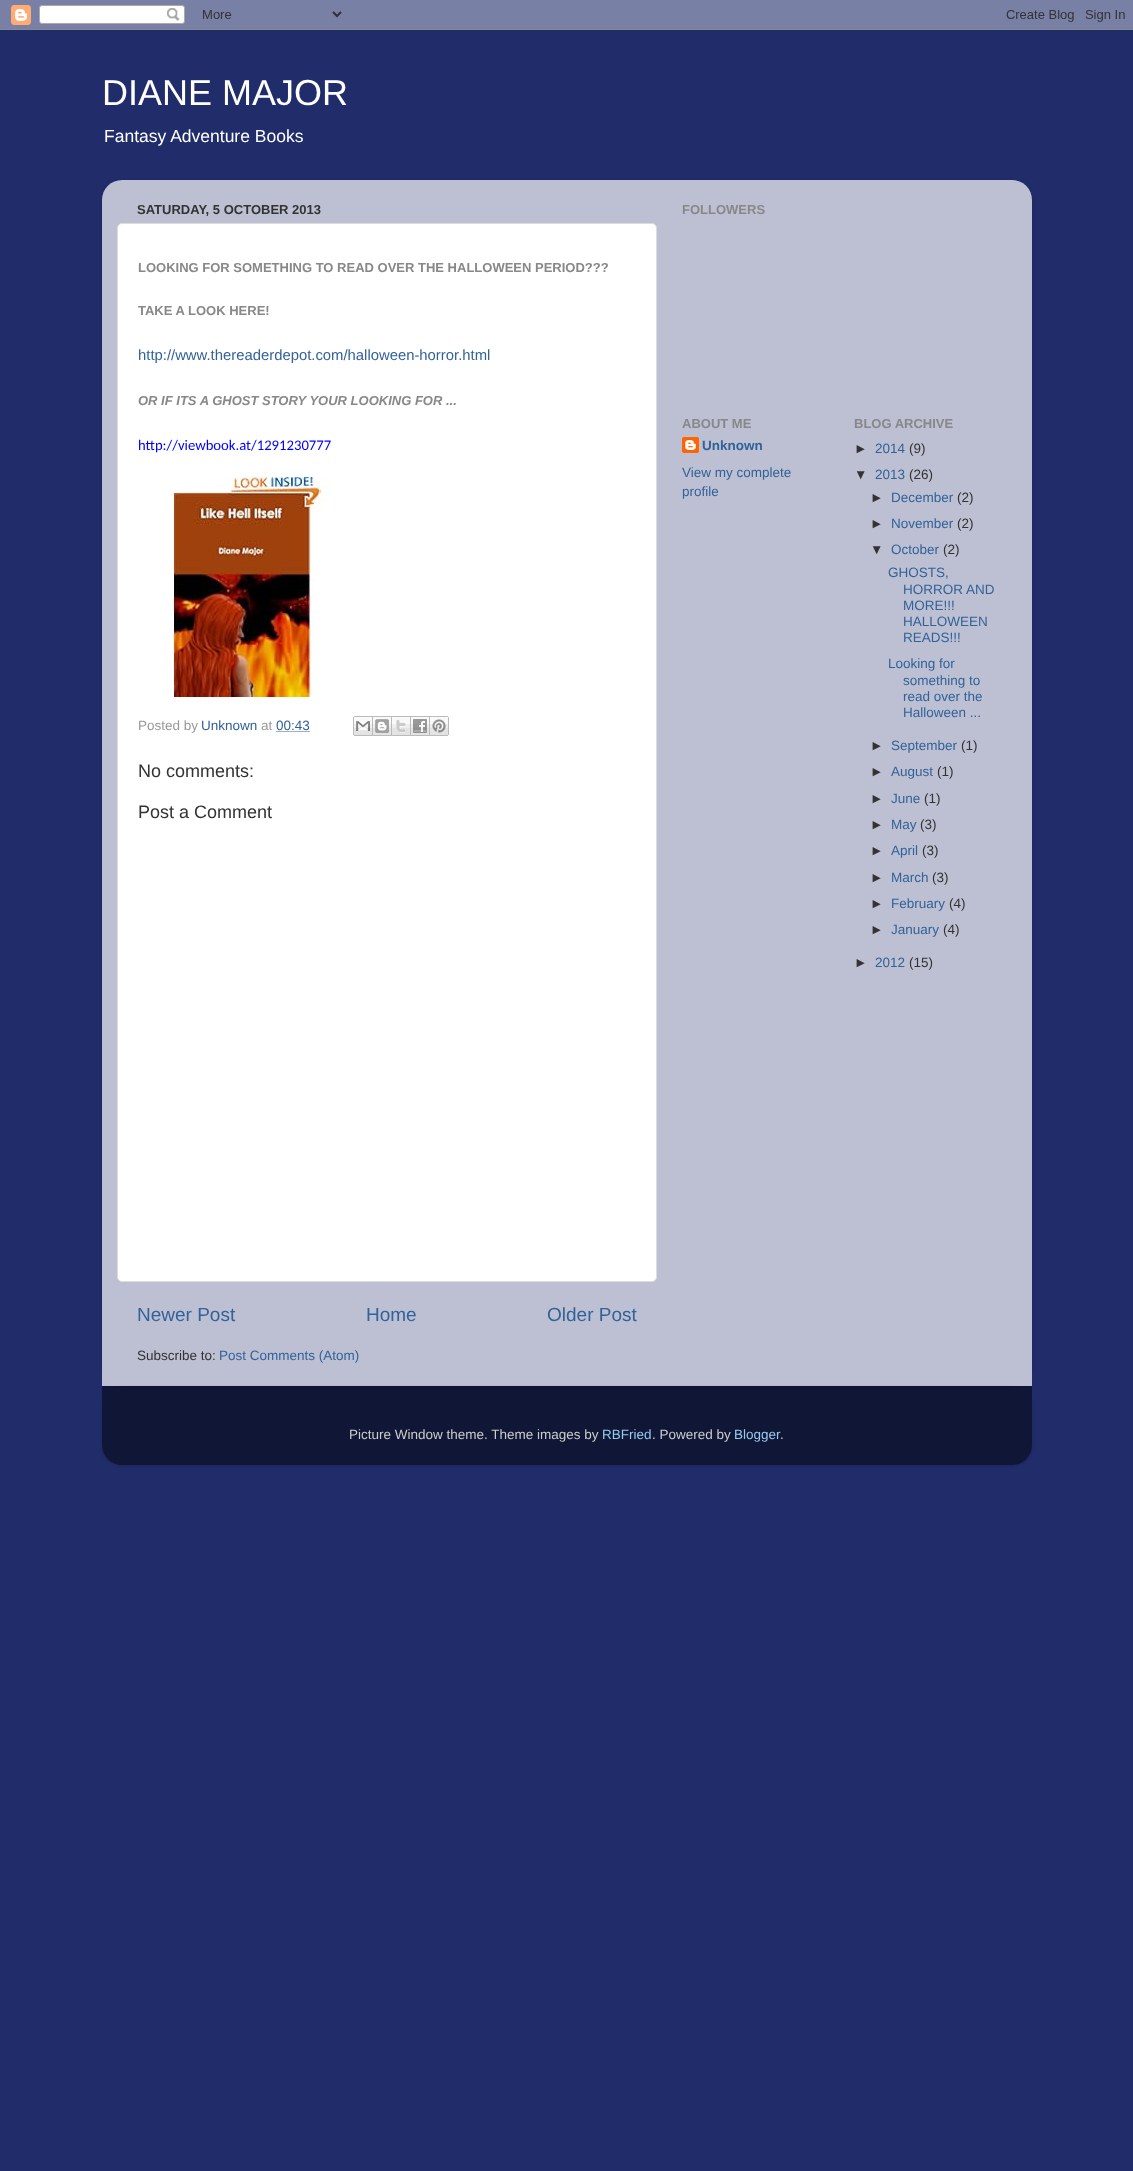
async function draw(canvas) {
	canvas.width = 1133;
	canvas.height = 2171;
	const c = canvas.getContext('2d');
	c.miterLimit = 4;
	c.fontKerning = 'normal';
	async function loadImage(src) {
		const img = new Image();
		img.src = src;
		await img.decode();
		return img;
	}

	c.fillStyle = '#212c6a';
	c.fillRect(0, 0, 1133, 2171);
	c.drawImage(await loadImage('img1.png'), 0, 0, 1133, 30);
	c.font = '36px Liberation Sans';
	c.fillStyle = '#fff';
	c.fillText('DIANE MAJOR', 102, 105);
	c.font = '17.5px Liberation Sans';
	c.fillText('Fantasy Adventure Books', 104, 142);
	c.save();
	c.beginPath();
	c.moveTo(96, 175);
	c.lineTo(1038, 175);
	c.lineTo(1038, 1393);
	c.lineTo(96, 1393);
	c.closePath();
	c.moveTo(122, 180);
	c.lineTo(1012, 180);
	c.bezierCurveTo(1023, 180, 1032, 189, 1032, 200);
	c.lineTo(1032, 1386);
	c.lineTo(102, 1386);
	c.lineTo(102, 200);
	c.bezierCurveTo(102, 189, 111, 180, 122, 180);
	c.closePath();
	c.clip('evenodd');
	c.fillStyle = '#00000026';
	c.filter = 'blur(1.5px)';
	c.beginPath();
	c.roundRect(102, 181, 930, 1206, 20);
	c.fill();
	c.filter = 'none';
	c.restore();
	c.drawImage(await loadImage('img2.png'), 102, 180, 930, 1206);
	c.font = 'bold 13px Liberation Sans';
	c.fillStyle = '#333';
	c.fillText('SATURDAY, 5 OCTOBER 2013', 137, 214);
	c.fillStyle = '#fff';
	c.beginPath();
	c.roundRect(117.5, 223.5, 539, 1058, 4.5);
	c.fill();
	c.strokeStyle = '#ddd';
	c.stroke();
	c.fillStyle = '#888';
	c.fillText('LOOKING FOR SOMETHING TO READ OVER THE HALLOWEEN PERIOD???', 138, 272);
	c.fillText('TAKE A LOOK HERE!', 138, 315);
	c.font = '14.85px Liberation Sans';
	c.fillStyle = '#336299';
	c.fillText('http://www.thereaderdepot.com/halloween-horror.html', 138, 360);
	c.font = 'italic bold 13px Liberation Sans';
	c.fillStyle = '#888';
	c.fillText('OR IF ITS A GHOST STORY YOUR LOOKING FOR ...', 138, 405);
	c.font = '14.7px Carlito';
	c.fillStyle = '#00f';
	c.fillText('http://viewbook.at/1291230777', 138, 450);
	c.drawImage(await loadImage('img3.png'), 170, 477, 160, 220);
	c.font = '13.5px Liberation Sans';
	c.fillStyle = '#999';
	c.fillText('Posted by', 138, 730);
	c.fillStyle = '#336299';
	c.fillText('Unknown', 201, 730);
	c.fillStyle = '#999';
	c.fillText('at', 261, 730);
	c.fillStyle = '#336299';
	c.fillText('00:43', 276, 730);
	c.beginPath();
	c.moveTo(276.5, 731.5);
	c.lineTo(310, 731.5);
	c.strokeStyle = '#336299';
	c.setLineDash([1, 1]);
	c.stroke();
	c.drawImage(await loadImage('img4.png'), 353, 716, 20, 20);
	c.drawImage(await loadImage('img5.png'), 373, 716, 19, 20);
	c.drawImage(await loadImage('img6.png'), 392, 716, 19, 20);
	c.drawImage(await loadImage('img7.png'), 411, 716, 19, 20);
	c.drawImage(await loadImage('img8.png'), 430, 716, 19, 20);
	c.font = '18px Liberation Sans';
	c.fillStyle = '#333';
	c.fillText('No comments:', 138, 777);
	c.fillText('Post a Comment', 138, 818);
	c.font = '19px Liberation Sans';
	c.fillStyle = '#336299';
	for (const [text, x, y] of [
		['Newer Post', 137, 1321],
		['Home', 366, 1321],
		['Older Post', 547, 1321],
	]) {
		c.fillText(text, x, y);
	}
	c.font = '13.5px Liberation Sans';
	c.fillStyle = '#333';
	c.fillText('Subscribe to:', 137, 1360);
	c.fillStyle = '#336299';
	c.fillText('Post Comments (Atom)', 219, 1360);
	c.font = 'bold 13px Liberation Sans';
	c.fillStyle = '#888';
	c.fillText('FOLLOWERS', 682, 214);
	c.fillText('ABOUT ME', 682, 428);
	c.drawImage(await loadImage('img9.png'), 682, 437, 17, 16);
	c.font = 'bold 13.5px Liberation Sans';
	c.fillStyle = '#336299';
	c.fillText('Unknown', 702, 450);
	c.font = '13.5px Liberation Sans';
	c.fillText('View my complete', 682, 477);
	c.fillText('profile', 682, 496);
	c.font = 'bold 13px Liberation Sans';
	c.fillStyle = '#888';
	c.fillText('BLOG ARCHIVE', 854, 428);
	c.font = '13.5px Liberation Sans';
	c.fillStyle = '#333';
	c.fillText('►', 854, 453);
	c.fillStyle = '#336299';
	c.fillText('2014', 875, 453);
	c.fillStyle = '#333';
	c.fillText('(9)', 909, 453);
	c.fillText('▼', 854, 479);
	c.fillStyle = '#336299';
	c.fillText('2013', 875, 479);
	c.fillStyle = '#333';
	c.fillText('(26)', 909, 479);
	c.fillText('►', 870, 502);
	c.fillStyle = '#336299';
	c.fillText('December', 891, 502);
	c.fillStyle = '#333';
	c.fillText('(2)', 957, 502);
	c.fillText('►', 870, 528);
	c.fillStyle = '#336299';
	c.fillText('November', 891, 528);
	c.fillStyle = '#333';
	c.fillText('(2)', 957, 528);
	c.fillText('▼', 870, 554);
	c.fillStyle = '#336299';
	c.fillText('October', 891, 554);
	c.fillStyle = '#333';
	c.fillText('(2)', 943, 554);
	c.fillStyle = '#336299';
	for (const [text, x, y] of [
		['GHOSTS,', 888, 577],
		['HORROR AND', 903, 594],
		['MORE!!!', 903, 610],
		['HALLOWEEN', 903, 626],
		['READS!!!', 903, 642],
		['Looking for', 888, 668],
		['something to', 903, 685],
		['read over the', 903, 701],
		['Halloween ...', 903, 717],
	]) {
		c.fillText(text, x, y);
	}
	c.fillStyle = '#333';
	c.fillText('►', 870, 750);
	c.fillStyle = '#336299';
	c.fillText('September', 891, 750);
	c.fillStyle = '#333';
	c.fillText('(1)', 961, 750);
	c.fillText('►', 870, 776);
	c.fillStyle = '#336299';
	c.fillText('August', 891, 776);
	c.fillStyle = '#333';
	c.fillText('(1)', 937, 776);
	c.fillText('►', 870, 803);
	c.fillStyle = '#336299';
	c.fillText('June', 891, 803);
	c.fillStyle = '#333';
	c.fillText('(1)', 924, 803);
	c.fillText('►', 870, 829);
	c.fillStyle = '#336299';
	c.fillText('May', 891, 829);
	c.fillStyle = '#333';
	c.fillText('(3)', 920, 829);
	c.fillText('►', 870, 855);
	c.fillStyle = '#336299';
	c.fillText('April', 891, 855);
	c.fillStyle = '#333';
	c.fillText('(3)', 922, 855);
	c.fillText('►', 870, 882);
	c.fillStyle = '#336299';
	c.fillText('March', 891, 882);
	c.fillStyle = '#333';
	c.fillText('(3)', 932, 882);
	c.fillText('►', 870, 908);
	c.fillStyle = '#336299';
	c.fillText('February', 891, 908);
	c.fillStyle = '#333';
	c.fillText('(4)', 949, 908);
	c.fillText('►', 870, 934);
	c.fillStyle = '#336299';
	c.fillText('January', 891, 934);
	c.fillStyle = '#333';
	c.fillText('(4)', 943, 934);
	c.fillText('►', 854, 967);
	c.fillStyle = '#336299';
	c.fillText('2012', 875, 967);
	c.fillStyle = '#333';
	c.fillText('(15)', 909, 967);
	c.save();
	c.beginPath();
	c.moveTo(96, 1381);
	c.lineTo(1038, 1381);
	c.lineTo(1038, 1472);
	c.lineTo(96, 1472);
	c.closePath();
	c.moveTo(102, 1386);
	c.lineTo(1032, 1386);
	c.lineTo(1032, 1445);
	c.bezierCurveTo(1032, 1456, 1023, 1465, 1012, 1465);
	c.lineTo(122, 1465);
	c.bezierCurveTo(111, 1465, 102, 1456, 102, 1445);
	c.closePath();
	c.clip('evenodd');
	c.fillStyle = '#00000026';
	c.filter = 'blur(1.5px)';
	c.beginPath();
	c.roundRect(102, 1387, 930, 79, 20);
	c.fill();
	c.filter = 'none';
	c.restore();
	c.drawImage(await loadImage('img10.png'), 102, 1386, 930, 79);
	c.fillStyle = '#ccc';
	c.fillText('Picture Window theme. Theme images by', 349, 1439);
	c.fillStyle = '#98c9ee';
	c.fillText('RBFried', 602, 1439);
	c.fillStyle = '#ccc';
	c.fillText('. Powered by', 652, 1439);
	c.fillStyle = '#98c9ee';
	c.fillText('Blogger', 734, 1439);
	c.fillStyle = '#ccc';
	c.fillText('.', 780, 1439);
}

draw(document.querySelector('canvas'));
